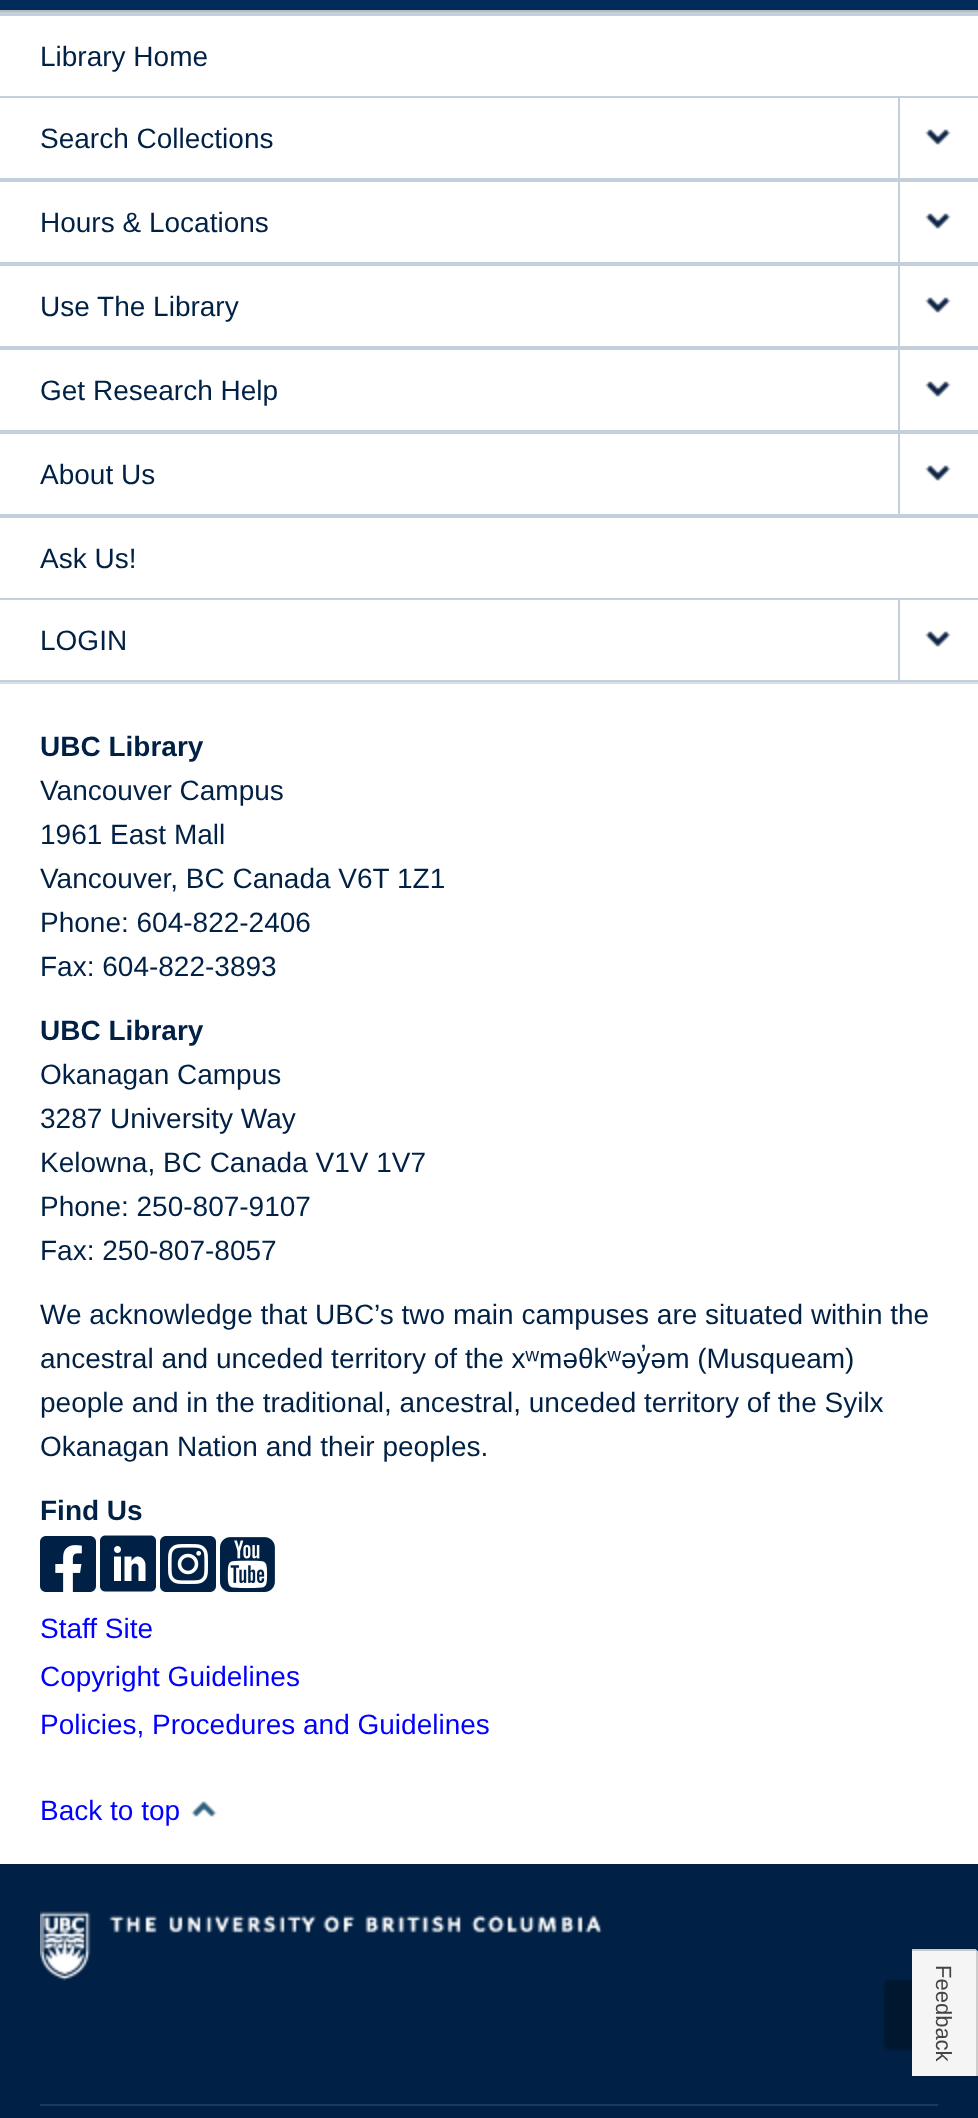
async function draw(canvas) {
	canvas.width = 978;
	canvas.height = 2118;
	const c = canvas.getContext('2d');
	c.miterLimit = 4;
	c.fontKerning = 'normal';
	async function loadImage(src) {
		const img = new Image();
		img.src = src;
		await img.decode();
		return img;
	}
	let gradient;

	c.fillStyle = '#fff';
	c.fillRect(0, 0, 978, 2118);
	gradient = c.createLinearGradient(489, -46, 489, 10);
	gradient.addColorStop(0.15, '#002145');
	gradient.addColorStop(0.85, '#002c5b');
	c.fillStyle = gradient;
	c.fillRect(0, 0, 978, 10);
	for (const [x, y, w, h, color] of [
		[0, 10, 978, 2, '#b8bac0'],
		[0, 12, 978, 4, '#c3d0db'],
		[0, 96, 978, 2, '#c3d0db'],
	]) {
		c.fillStyle = color;
		c.fillRect(x, y, w, h);
	}
	c.font = '28px Liberation Sans';
	c.fillStyle = '#002145';
	c.fillText('Library Home', 40, 66);
	c.fillStyle = '#c3d0db';
	c.fillRect(0, 180, 978, 2);
	c.fillRect(0, 178, 978, 2);
	c.fillStyle = '#002145';
	c.fillText('Search Collections', 40, 148);
	c.fillStyle = '#c3d0db';
	c.fillRect(898, 98, 2, 82);
	c.drawImage(await loadImage('img1.png'), 925, 129, 26, 16);
	c.fillRect(0, 264, 978, 2);
	c.fillRect(0, 262, 978, 2);
	c.fillStyle = '#002145';
	c.fillText('Hours & Locations', 40, 232);
	c.fillStyle = '#c3d0db';
	c.fillRect(898, 182, 2, 82);
	c.drawImage(await loadImage('img1.png'), 925, 213, 26, 16);
	c.fillRect(0, 348, 978, 2);
	c.fillRect(0, 346, 978, 2);
	c.fillStyle = '#002145';
	c.fillText('Use The Library', 40, 316);
	c.fillStyle = '#c3d0db';
	c.fillRect(898, 266, 2, 82);
	c.drawImage(await loadImage('img1.png'), 925, 297, 26, 16);
	c.fillRect(0, 432, 978, 2);
	c.fillRect(0, 430, 978, 2);
	c.fillStyle = '#002145';
	c.fillText('Get Research Help', 40, 400);
	c.fillStyle = '#c3d0db';
	c.fillRect(898, 350, 2, 82);
	c.drawImage(await loadImage('img1.png'), 925, 381, 26, 16);
	c.fillRect(0, 516, 978, 2);
	c.fillRect(0, 514, 978, 2);
	c.fillStyle = '#002145';
	c.fillText('About Us', 40, 484);
	c.fillStyle = '#c3d0db';
	c.fillRect(898, 434, 2, 82);
	c.drawImage(await loadImage('img1.png'), 925, 465, 26, 16);
	c.fillRect(0, 598, 978, 2);
	c.fillStyle = '#002145';
	c.fillText('Ask Us!', 40, 568);
	c.fillStyle = '#c3d0db';
	c.fillRect(0, 680, 978, 2);
	c.fillStyle = '#002145';
	c.fillText('LOGIN', 40, 650);
	c.fillStyle = '#c3d0db';
	c.fillRect(898, 600, 2, 82);
	c.drawImage(await loadImage('img1.png'), 925, 631, 26, 16);
	c.fillStyle = '#002145';
	c.fillRect(0, 1864, 978, 254);
	c.fillStyle = '#d7e0e7';
	c.fillRect(0, 682, 978, 2);
	c.font = 'bold 28px Liberation Sans';
	c.fillStyle = '#002145';
	c.fillText('UBC Library', 40, 756);
	c.font = '28px Liberation Sans';
	for (const [text, x, y] of [
		['Vancouver Campus', 40, 800],
		['1961 East Mall', 40, 844],
		['Vancouver, BC Canada V6T 1Z1', 40, 888],
		['Phone: 604-822-2406', 40, 932],
		['Fax: 604-822-3893', 40, 976],
	]) {
		c.fillText(text, x, y);
	}
	c.font = 'bold 28px Liberation Sans';
	c.fillText('UBC Library', 40, 1040);
	c.font = '28px Liberation Sans';
	for (const [text, x, y] of [
		['Okanagan Campus', 40, 1084],
		['3287 University Way', 40, 1128],
		['Kelowna, BC Canada V1V 1V7', 40, 1172],
		['Phone: 250-807-9107', 40, 1216],
		['Fax: 250-807-8057', 40, 1260],
		['We acknowledge that UBC’s two main campuses are situated within the', 40, 1324],
		['ancestral and unceded territory of the xʷməθkʷəy̓əm (Musqueam)', 40, 1368],
		['people and in the traditional, ancestral, unceded territory of the Syilx', 40, 1412],
		['Okanagan Nation and their peoples.', 40, 1456],
	]) {
		c.fillText(text, x, y);
	}
	c.font = 'bold 28px Liberation Sans';
	c.fillText('Find Us', 40, 1520);
	c.drawImage(await loadImage('img2.png'), 40, 1536, 56, 56);
	c.drawImage(await loadImage('img3.png'), 100, 1535, 56, 57);
	c.drawImage(await loadImage('img4.png'), 160, 1536, 56, 56);
	c.drawImage(await loadImage('img5.png'), 220, 1537, 55, 55);
	c.font = '28px Liberation Sans';
	c.fillStyle = '#00f';
	for (const [text, x, y] of [
		['Staff Site', 40, 1638],
		['Copyright Guidelines', 40, 1686],
		['Policies, Procedures and Guidelines', 40, 1734],
		['Back to top', 40, 1820],
	]) {
		c.fillText(text, x, y);
	}
	c.drawImage(await loadImage('img6.png'), 191, 1801, 26, 16);
	c.drawImage(await loadImage('img7.png'), 40, 1911, 563, 70);
	c.fillStyle = '#1f385f';
	c.fillRect(40, 2104, 898, 2);
	c.fillStyle = '#0000004d';
	c.filter = 'blur(1px)';
	c.beginPath();
	c.roundRect(884, 1980, 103, 70, 6);
	c.fill();
	c.filter = 'none';
	c.fillStyle = '#f5f5f5';
	c.beginPath();
	c.moveTo(978, 1953);
	c.lineTo(978, 2076);
	c.lineTo(912, 2076);
	c.lineTo(912, 1949);
	c.lineTo(974, 1949);
	c.bezierCurveTo(976, 1949, 978, 1951, 978, 1953);
	c.closePath();
	c.fill();
	c.fillStyle = '#ccc';
	c.fillRect(976, 1951, 2, 125);
	c.fillRect(912, 1949, 64, 2);
	c.font = '22px Liberation Sans';
	c.fillStyle = '#444';
	c.save();
	c.translate(936, 1965);
	c.rotate(90 * Math.PI / 180);
	c.fillText('Feedback', 0, 0);
	c.restore();
}

draw(document.querySelector('canvas'));
